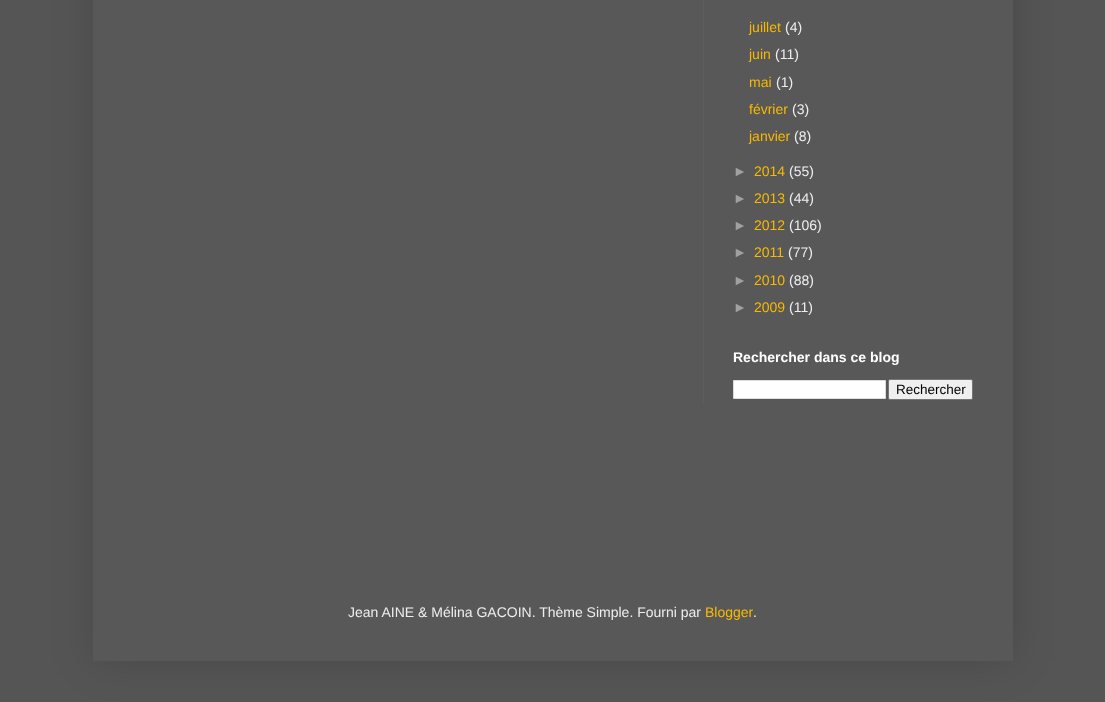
async function draw(canvas) {
	canvas.width = 1105;
	canvas.height = 702;
	const c = canvas.getContext('2d');
	c.miterLimit = 4;
	c.fontKerning = 'normal';

	c.fillStyle = '#555';
	c.fillRect(0, 0, 1105, 702);
	c.fillStyle = '#00000026';
	c.filter = 'blur(20px)';
	c.beginPath();
	c.rect(93, -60, 920, 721);
	c.fill();
	c.filter = 'none';
	c.fillStyle = '#585858';
	c.fillRect(93, 0, 920, 661);
	c.fillStyle = '#5d5d5d';
	c.fillRect(703, 0, 1, 404);
	c.font = '14px Liberation Sans';
	c.fillStyle = '#f8ba00';
	c.fillText('juillet', 749, 32);
	c.fillStyle = '#eee';
	c.fillText('(4)', 785, 32);
	c.fillStyle = '#f8ba00';
	c.fillText('juin', 749, 59);
	c.fillStyle = '#eee';
	c.fillText('(11)', 775, 59);
	c.fillStyle = '#f8ba00';
	c.fillText('mai', 749, 87);
	c.fillStyle = '#eee';
	c.fillText('(1)', 776, 87);
	c.fillStyle = '#f8ba00';
	c.fillText('février', 749, 114);
	c.fillStyle = '#eee';
	c.fillText('(3)', 792, 114);
	c.fillStyle = '#f8ba00';
	c.fillText('janvier', 749, 141);
	c.fillStyle = '#eee';
	c.fillText('(8)', 794, 141);
	c.fillStyle = '#a0a0a0';
	c.fillText('►', 733, 176);
	c.fillStyle = '#f8ba00';
	c.fillText('2014', 754, 176);
	c.fillStyle = '#eee';
	c.fillText('(55)', 789, 176);
	c.fillStyle = '#a0a0a0';
	c.fillText('►', 733, 203);
	c.fillStyle = '#f8ba00';
	c.fillText('2013', 754, 203);
	c.fillStyle = '#eee';
	c.fillText('(44)', 789, 203);
	c.fillStyle = '#a0a0a0';
	c.fillText('►', 733, 230);
	c.fillStyle = '#f8ba00';
	c.fillText('2012', 754, 230);
	c.fillStyle = '#eee';
	c.fillText('(106)', 789, 230);
	c.fillStyle = '#a0a0a0';
	c.fillText('►', 733, 257);
	c.fillStyle = '#f8ba00';
	c.fillText('2011', 754, 257);
	c.fillStyle = '#eee';
	c.fillText('(77)', 788, 257);
	c.fillStyle = '#a0a0a0';
	c.fillText('►', 733, 285);
	c.fillStyle = '#f8ba00';
	c.fillText('2010', 754, 285);
	c.fillStyle = '#eee';
	c.fillText('(88)', 789, 285);
	c.fillStyle = '#a0a0a0';
	c.fillText('►', 733, 312);
	c.fillStyle = '#f8ba00';
	c.fillText('2009', 754, 312);
	c.fillStyle = '#eee';
	c.fillText('(11)', 789, 312);
	c.font = 'bold 14px Liberation Sans';
	c.fillStyle = '#fff';
	c.fillText('Rechercher dans ce blog', 733, 362);
	c.beginPath();
	c.rect(733.5, 380.5, 152, 18);
	c.fill();
	c.strokeStyle = '#ddd';
	c.stroke();
	c.fillStyle = '#efefef';
	c.beginPath();
	c.roundRect(888.5, 379.5, 84, 20, 1.5);
	c.fill();
	c.strokeStyle = '#767676';
	c.stroke();
	c.font = '13.5px Liberation Sans';
	c.fillStyle = '#000';
	c.fillText('Rechercher', 896, 394);
	c.font = '14px Liberation Sans';
	c.fillStyle = '#eee';
	c.fillText('Jean AINE & Mélina GACOIN. Thème Simple. Fourni par', 348, 617);
	c.fillStyle = '#f8ba00';
	c.fillText('Blogger', 705, 617);
	c.fillStyle = '#eee';
	c.fillText('.', 753, 617);
}

draw(document.querySelector('canvas'));
